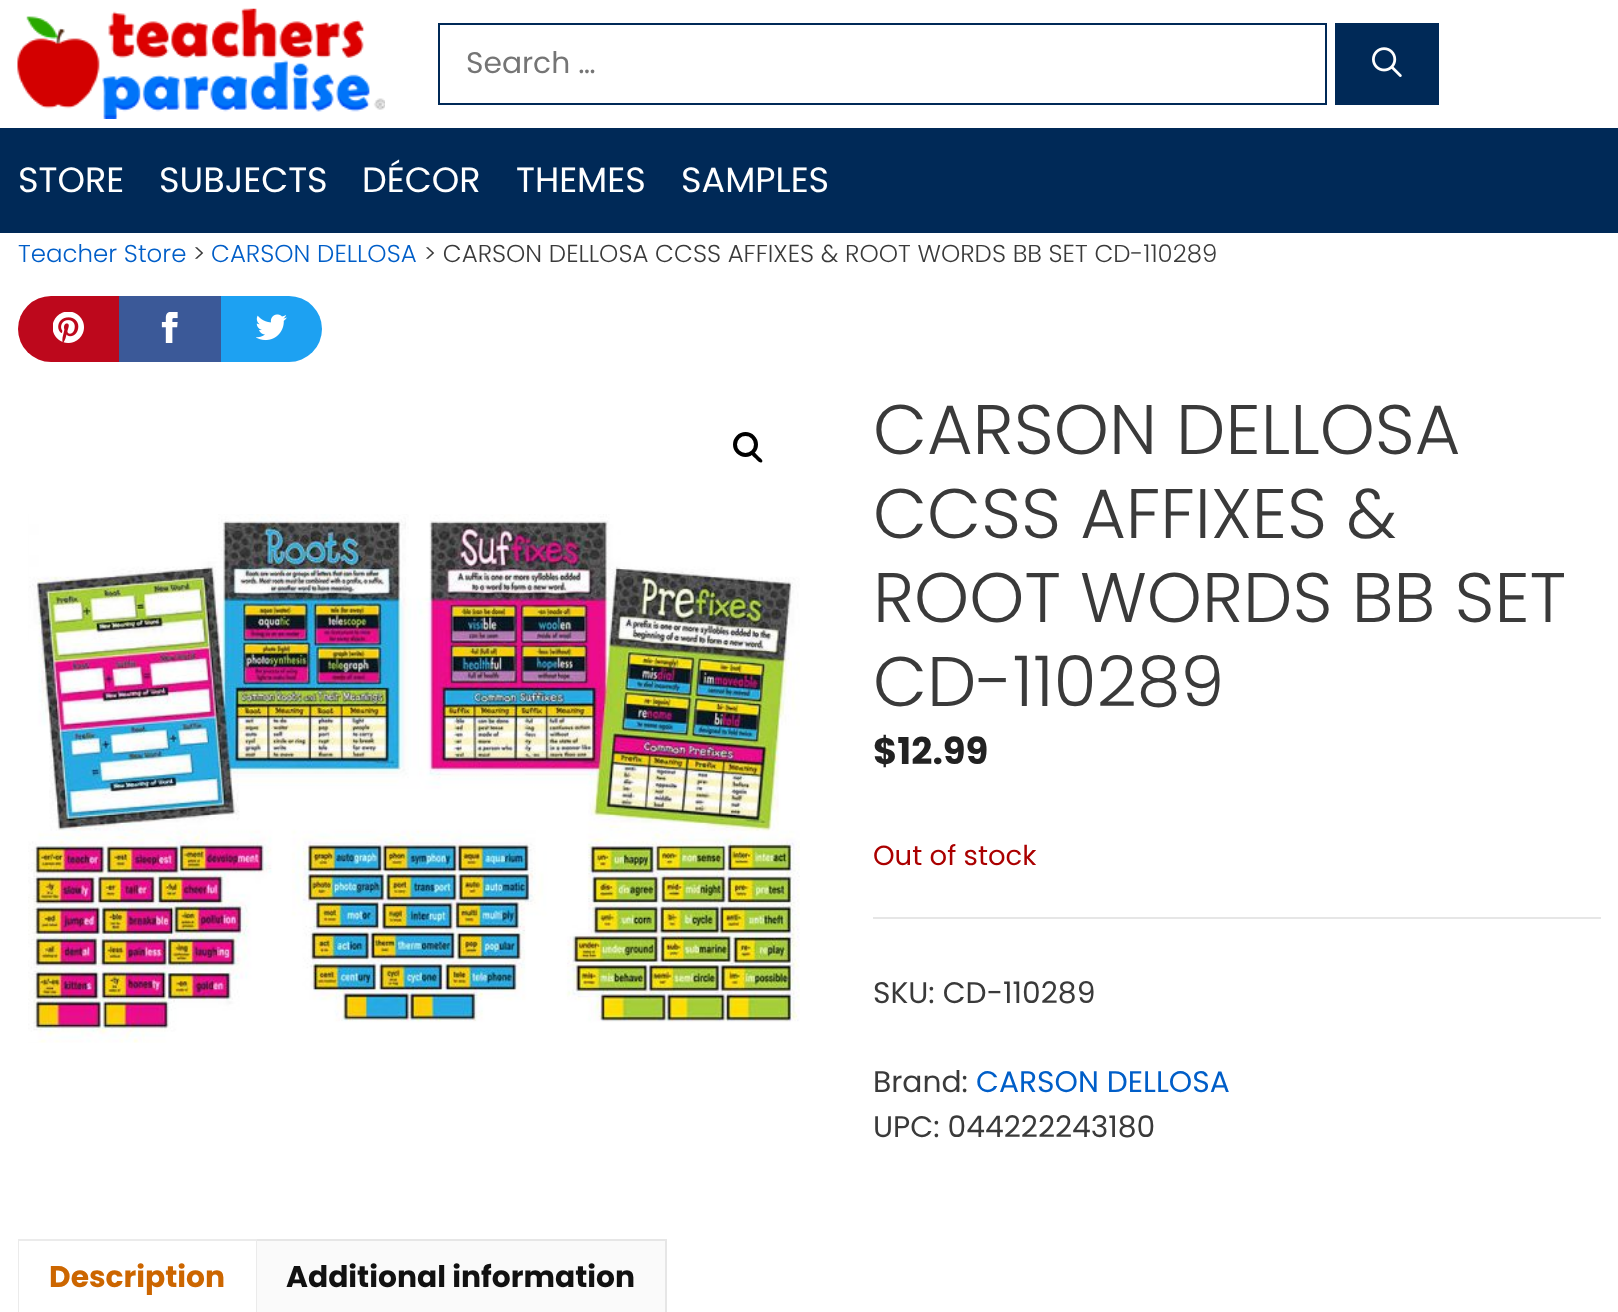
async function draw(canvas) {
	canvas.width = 1618;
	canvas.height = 1312;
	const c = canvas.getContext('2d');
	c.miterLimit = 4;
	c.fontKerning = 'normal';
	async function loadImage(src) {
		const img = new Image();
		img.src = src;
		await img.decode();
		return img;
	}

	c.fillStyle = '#002957';
	c.fillRect(0, 0, 1618, 1312);
	c.fillStyle = '#fff';
	c.fillRect(0, 0, 1618, 128);
	c.drawImage(await loadImage('img1.png'), 17, 8, 368, 111);
	c.strokeStyle = '#002957';
	c.lineWidth = 2;
	c.strokeRect(439, 24, 887, 80);
	c.font = '29.75px Poppins';
	c.fillStyle = '#757575';
	c.fillText('Search …', 466, 73);
	c.fillStyle = '#002957';
	c.fillRect(1335, 23, 104, 82);
	c.drawImage(await loadImage('img2.png'), 1372, 47, 30, 30);
	c.font = '35px Poppins';
	c.fillStyle = '#fff';
	for (const [text, x, y] of [
		['STORE', 18, 192],
		['SUBJECTS', 159, 192],
		['DÉCOR', 362, 192],
		['THEMES', 516, 192],
		['SAMPLES', 681, 192],
	]) {
		c.fillText(text, x, y);
	}
	c.fillRect(0, 233, 1618, 1079);
	c.font = '300 24.5px Poppins';
	c.fillStyle = '#005ec8';
	c.fillText('Teacher Store', 18, 262);
	c.fillStyle = '#3a3a3a';
	c.fillText('>', 193, 262);
	c.fillStyle = '#005ec8';
	c.fillText('CARSON DELLOSA', 211, 262);
	c.fillStyle = '#3a3a3a';
	c.fillText('> CARSON DELLOSA CCSS AFFIXES & ROOT WORDS BB SET CD-110289', 424, 262);
	c.fillStyle = '#bd081c';
	c.beginPath();
	c.roundRect(18, 296, 101, 66, [33, 0, 0, 33]);
	c.fill();
	c.drawImage(await loadImage('img3.png'), 53, 312, 31, 31);
	c.fillStyle = '#3b5998';
	c.fillRect(119, 296, 102, 66);
	c.drawImage(await loadImage('img4.png'), 161, 312, 17, 31);
	c.fillStyle = '#1da1f2';
	c.beginPath();
	c.roundRect(221, 296, 101, 66, [0, 33, 33, 0]);
	c.fill();
	c.drawImage(await loadImage('img5.png'), 256, 314, 31, 27);
	c.beginPath();
	c.arc(745.5, 444.5, 10.5, 0, 2 * Math.PI);
	c.strokeStyle = '#000';
	c.lineWidth = 4;
	c.stroke();
	c.fillStyle = '#000';
	c.beginPath();
	c.moveTo(752, 452.5);
	c.bezierCurveTo(754, 450.5, 757, 455, 758, 456);
	c.bezierCurveTo(759, 457, 764, 460.5, 762, 462);
	c.bezierCurveTo(760, 464, 756.5, 459.5, 755.5, 458.5);
	c.bezierCurveTo(754.5, 457.5, 750, 454.5, 752, 452.5);
	c.closePath();
	c.fill();
	c.drawImage(await loadImage('img6.png'), 28, 514, 772, 529);
	c.font = '300 70px Poppins';
	c.fillStyle = '#3a3a3a';
	for (const [text, x, y] of [
		['CARSON DELLOSA', 873, 454],
		['CCSS AFFIXES &', 873, 538],
		['ROOT WORDS BB SET', 873, 622],
		['CD-110289', 873, 706],
	]) {
		c.fillText(text, x, y);
	}
	c.font = 'bold 37px Poppins';
	c.fillStyle = '#222';
	c.fillText('$12.99', 873, 764);
	c.font = '27.5px Poppins';
	c.fillStyle = '#a00';
	c.fillText('Out of stock', 873, 865);
	c.fillStyle = '#e6e6e6';
	c.fillRect(873, 917, 728, 2);
	c.font = '29.75px Poppins';
	c.fillStyle = '#3a3a3a';
	c.fillText('SKU: CD-110289', 873, 1003);
	c.fillText('Brand:', 873, 1092);
	c.fillStyle = '#005ec8';
	c.fillText('CARSON DELLOSA', 976, 1092);
	c.fillStyle = '#3a3a3a';
	c.fillText('UPC: 044222243180', 873, 1137);
	c.fillStyle = '#ebebeb';
	c.beginPath();
	c.moveTo(18, 1239);
	c.lineTo(257, 1239);
	c.lineTo(256, 1241);
	c.lineTo(19, 1241);
	c.closePath();
	c.fill();
	c.fillStyle = '#00000014';
	c.beginPath();
	c.moveTo(257, 1239);
	c.lineTo(257, 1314);
	c.lineTo(256, 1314);
	c.lineTo(256, 1241);
	c.closePath();
	c.fill();
	c.beginPath();
	c.moveTo(18, 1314);
	c.lineTo(18, 1239);
	c.lineTo(19, 1241);
	c.lineTo(19, 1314);
	c.closePath();
	c.fill();
	c.font = 'bold 29.75px Poppins';
	c.fillStyle = '#c60';
	c.fillText('Description', 49, 1287);
	c.fillStyle = '#fafafa';
	c.fillRect(257, 1239, 410, 73);
	c.fillStyle = '#e6e6e6';
	c.beginPath();
	c.moveTo(257, 1239);
	c.lineTo(667, 1239);
	c.lineTo(665, 1241);
	c.lineTo(257, 1241);
	c.closePath();
	c.fill();
	c.fillStyle = '#00000014';
	c.beginPath();
	c.moveTo(667, 1239);
	c.lineTo(667, 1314);
	c.lineTo(665, 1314);
	c.lineTo(665, 1241);
	c.closePath();
	c.fill();
	c.fillStyle = '#111';
	c.fillText('Additional information', 286, 1287);
}

draw(document.querySelector('canvas'));
